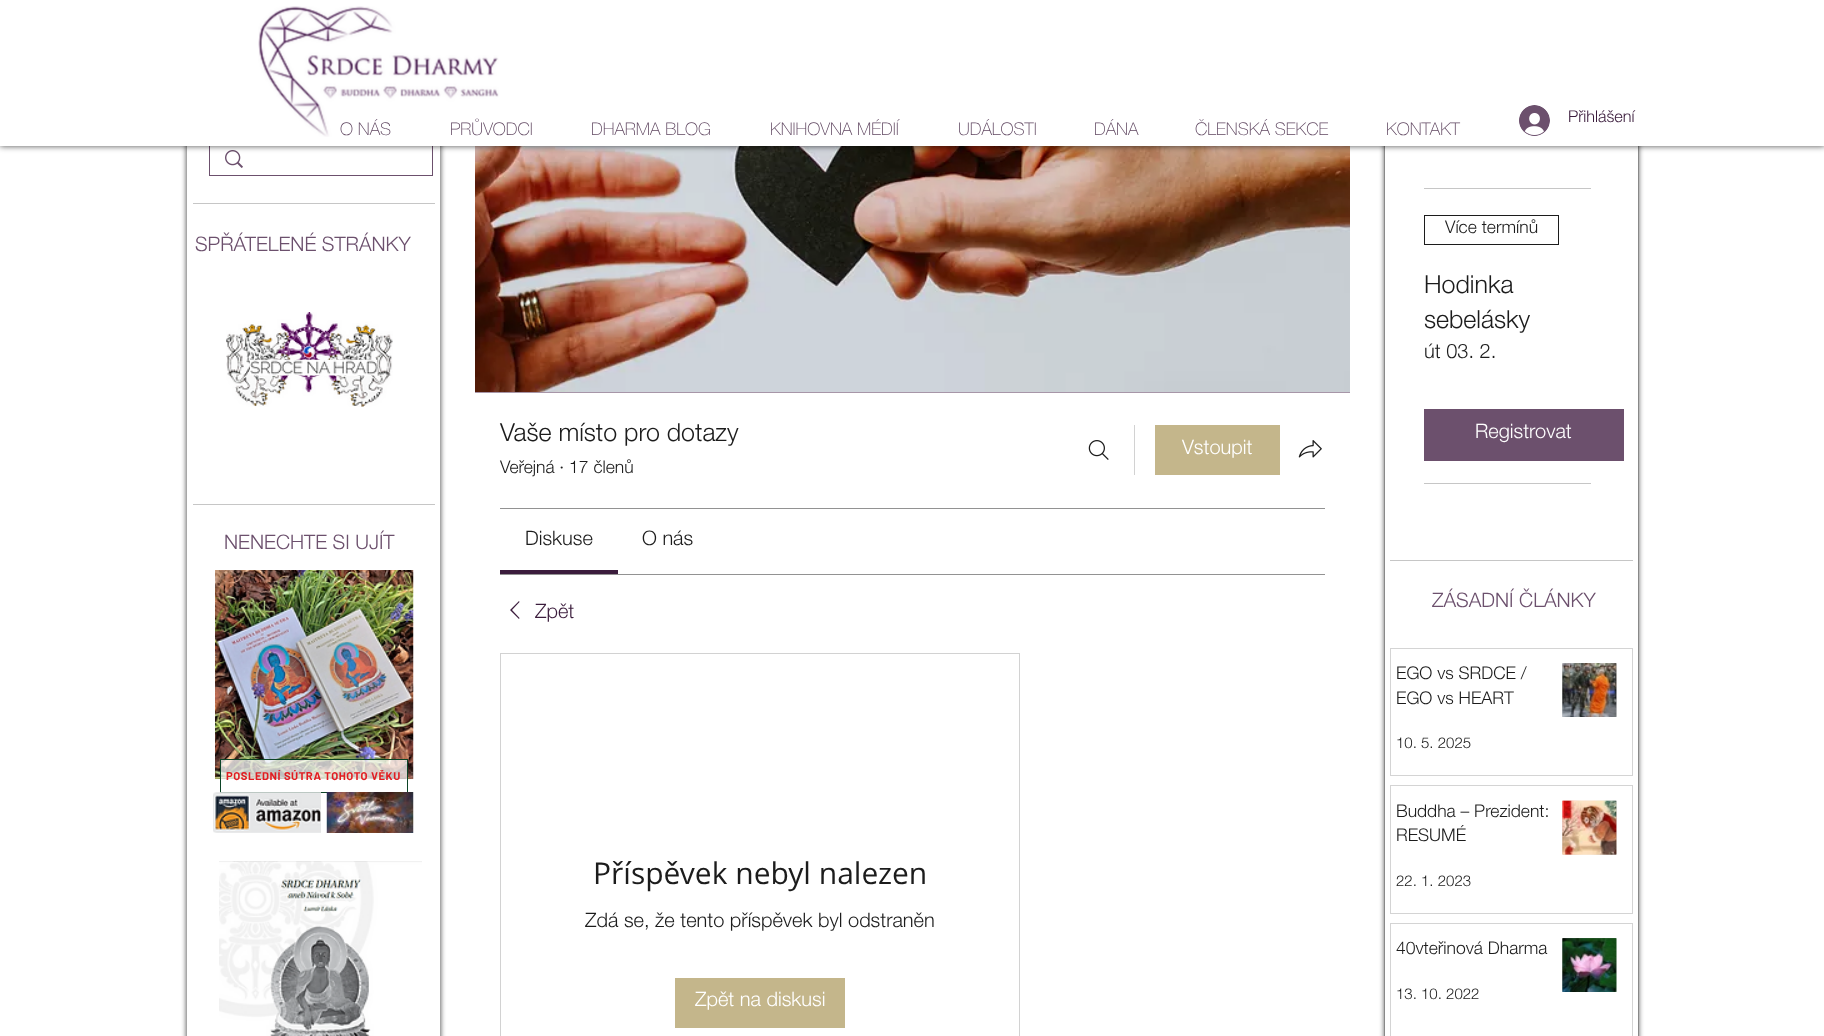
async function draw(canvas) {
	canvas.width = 1824;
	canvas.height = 1036;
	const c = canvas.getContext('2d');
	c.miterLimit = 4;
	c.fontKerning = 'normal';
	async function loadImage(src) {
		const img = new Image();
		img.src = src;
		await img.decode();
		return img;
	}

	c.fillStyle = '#fff';
	c.fillRect(0, 0, 1824, 1036);
	c.fillStyle = '#00000099';
	c.filter = 'blur(2.5px)';
	c.beginPath();
	c.roundRect(186, 88, 255, 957, 1);
	c.fill();
	c.filter = 'none';
	c.fillStyle = '#fff';
	c.fillRect(186, 146, 255, 890);
	c.strokeStyle = '#1c1c1c63';
	c.strokeRect(186.5, 86.5, 254, 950);
	c.strokeStyle = '#6c506d';
	c.strokeRect(209.5, 141.5, 223, 34);
	c.drawImage(await loadImage('img3.png'), 225, 150, 18, 18);
	c.fillStyle = '#00000099';
	c.filter = 'blur(2.5px)';
	c.beginPath();
	c.roundRect(1384, 89, 255, 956, 1);
	c.fill();
	c.filter = 'none';
	c.fillStyle = '#fff';
	c.fillRect(1385, 146, 253, 890);
	c.strokeStyle = '#898989';
	c.strokeRect(1384.5, 86.5, 254, 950);
	c.drawImage(await loadImage('img16.png'), 475, 146, 875, 246);
	c.fillStyle = '#000000b3';
	c.filter = 'blur(3px)';
	c.beginPath();
	c.rect(0, 0, 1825, 146);
	c.fill();
	c.filter = 'none';
	c.fillStyle = '#fff';
	c.fillRect(0, 0, 1824, 146);
	c.drawImage(await loadImage('img1.png'), 258, 6, 241, 131);
	c.drawImage(await loadImage('img2.png'), 1519, 105, 31, 31);
	c.font = '300 16.25px Helvetica Neue';
	c.fillStyle = '#3b1c3c';
	c.fillText('Přihlášení', 1568, 122);
	c.font = '200 17.5px Helvetica Neue';
	c.fillStyle = '#604761';
	for (const [text, x, y] of [
		['O NÁS', 340, 135],
		['PRŮVODCI', 450, 135],
		['DHARMA BLOG', 591, 135],
		['KNIHOVNA MÉDIÍ', 770, 135],
		['UDÁLOSTI', 958, 135],
		['DÁNA', 1094, 135],
		['ČLENSKÁ SEKCE', 1195, 135],
		['KONTAKT', 1386, 135],
	]) {
		c.fillText(text, x, y);
	}
	c.drawImage(await loadImage('img15.png'), 226, 312, 167, 95);
	c.drawImage(await loadImage('img4.png'), 250, 359, 128, 17);
	c.fillStyle = '#c6c6c6';
	c.fillRect(1424, 188, 167, 1);
	c.fillRect(1424, 483, 167, 1);
	c.strokeStyle = '#1c1c1c';
	c.strokeRect(1424.5, 215.5, 134, 29);
	c.font = '300 17.5px Helvetica Neue';
	c.fillStyle = '#1c1c1c';
	c.fillText('Více termínů', 1445, 233);
	c.font = '300 25px Helvetica Neue';
	c.fillText('Hodinka', 1424, 293);
	c.fillText('sebelásky', 1424, 328);
	c.font = '300 20px Helvetica Neue';
	c.fillText('út 03. 2.', 1424, 358);
	c.fillStyle = '#6c506d';
	c.fillRect(1424, 409, 200, 52);
	c.fillStyle = '#fff';
	c.fillText('Registrovat', 1475, 438);
	c.fillStyle = '#c6c6c6';
	c.fillRect(1390, 560, 243, 1);
	c.fillStyle = '#6c506d';
	c.fillText('ZÁSADNÍ ČLÁNKY', 1432, 607);
	c.strokeStyle = '#d4d4d4';
	c.strokeRect(1390.5, 648.5, 242, 127);
	c.font = '300 17.5px Helvetica Neue';
	c.fillStyle = '#1c1c1c';
	c.fillText('EGO vs SRDCE /', 1396, 679);
	c.fillText('EGO vs HEART', 1396, 704);
	c.font = '300 15px Helvetica Neue';
	c.fillText('10. 5. 2025', 1396, 748);
	c.drawImage(await loadImage('img5.png'), 1562, 663, 55, 54);
	c.drawImage(await loadImage('img6.png'), 1562, 663, 55, 54);
	c.strokeRect(1390.5, 785.5, 242, 128);
	c.font = '300 17.5px Helvetica Neue';
	c.fillText('Buddha – Prezident:', 1396, 817);
	c.fillText('RESUMÉ', 1396, 841);
	c.font = '300 15px Helvetica Neue';
	c.fillText('22. 1. 2023', 1396, 886);
	c.drawImage(await loadImage('img7.png'), 1562, 800, 55, 55);
	c.drawImage(await loadImage('img8.png'), 1562, 800, 55, 55);
	c.strokeRect(1390.5, 923.5, 242, 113);
	c.font = '300 17.5px Helvetica Neue';
	c.fillText('40vteřinová Dharma', 1396, 954);
	c.font = '300 15px Helvetica Neue';
	c.fillText('13. 10. 2022', 1396, 999);
	c.drawImage(await loadImage('img9.png'), 1562, 938, 55, 54);
	c.drawImage(await loadImage('img10.png'), 1562, 938, 55, 54);
	c.drawImage(await loadImage('img11.png'), 215, 570, 199, 210);
	c.fillStyle = '#ffffffbd';
	c.fillRect(221, 760, 186, 20);
	c.strokeStyle = '#0c4426';
	c.strokeRect(220.5, 759.5, 187, 33);
	c.letterSpacing = '0.55px';
	c.font = 'bold 11.25px Barlow';
	c.fillStyle = '#e21c21';
	c.fillText('POSLEDNÍ SÚTRA TOHOTO VĚKU', 226, 780);
	c.drawImage(await loadImage('img12.png'), 213, 792, 108, 41);
	c.drawImage(await loadImage('img13.png'), 326, 792, 88, 41);
	c.drawImage(await loadImage('img14.png'), 219, 861, 203, 175);
	c.fillStyle = '#c6c6c6';
	c.fillRect(193, 203, 242, 1);
	c.letterSpacing = '0px';
	c.font = '300 20px Helvetica Neue';
	c.fillStyle = '#6c506d';
	c.fillText('SPŘÁTELENÉ STRÁNKY', 195, 251);
	c.fillStyle = '#c6c6c6';
	c.fillRect(193, 504, 242, 1);
	c.fillStyle = '#6c506d';
	c.fillText('NENECHTE SI UJÍT', 224, 549);
	c.fillStyle = '#a796a8';
	c.fillRect(475, 392, 875, 1);
	c.font = '300 25px Helvetica Neue';
	c.fillStyle = '#1c1c1c';
	c.fillText('Vaše místo pro dotazy', 500, 441);
	c.font = '300 17.5px Helvetica Neue';
	c.fillText('Veřejná · 17 členů', 500, 473);
	c.drawImage(await loadImage('img17.png'), 1088, 440, 21, 20);
	c.fillStyle = '#d2d2d2';
	c.fillRect(1134, 425, 1, 50);
	c.fillStyle = '#c4b68b';
	c.fillRect(1155, 425, 125, 50);
	c.font = '300 20px Helvetica Neue';
	c.fillStyle = '#fff';
	c.fillText('Vstoupit', 1182, 454);
	c.drawImage(await loadImage('img18.png'), 1298, 440, 24, 18);
	for (const [x, y, w, h, color] of [
		[500, 508, 825, 1, '#929292'],
		[500, 574, 825, 1, '#929292'],
		[500, 570, 118, 4, '#3b1c3c'],
	]) {
		c.fillStyle = color;
		c.fillRect(x, y, w, h);
	}
	c.fillStyle = '#1c1c1c';
	c.fillText('Diskuse', 525, 545);
	c.fillText('O nás', 642, 545);
	c.fillStyle = '#3b1c3c';
	c.beginPath();
	c.moveTo(519, 601);
	c.lineTo(519.5, 602);
	c.lineTo(512, 610);
	c.lineTo(519.5, 618);
	c.lineTo(519, 619);
	c.lineTo(510, 610);
	c.closePath();
	c.fill('evenodd');
	c.fillText('Zpět', 535, 618);
	c.strokeStyle = '#d2d2d2';
	c.strokeRect(500.5, 653.5, 519, 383);
	c.font = '30px Open Sans';
	c.fillStyle = '#1c1c1c';
	c.fillText('Příspěvek nebyl nalezen', 593, 884);
	c.font = '300 20px Helvetica Neue';
	c.fillText('Zdá se, že tento příspěvek byl odstraněn', 585, 927);
	c.fillStyle = '#c4b68b';
	c.fillRect(675, 978, 170, 50);
	c.fillStyle = '#fff';
	c.fillText('Zpět na diskusi', 695, 1006);
}

draw(document.querySelector('canvas'));
